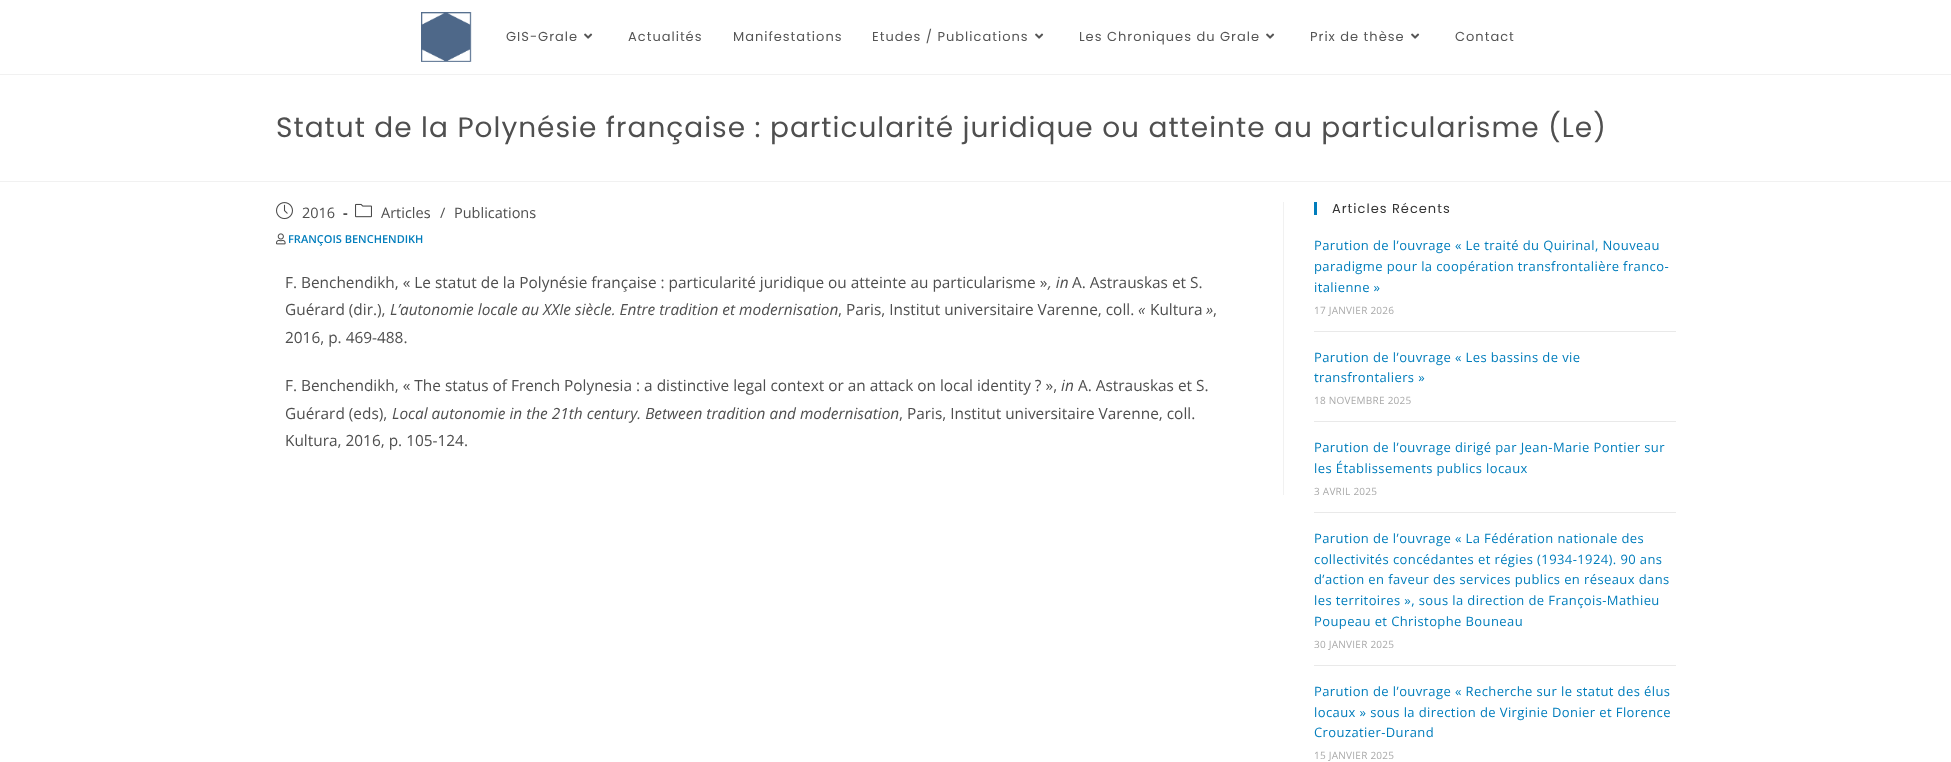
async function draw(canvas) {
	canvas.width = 1951;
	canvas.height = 762;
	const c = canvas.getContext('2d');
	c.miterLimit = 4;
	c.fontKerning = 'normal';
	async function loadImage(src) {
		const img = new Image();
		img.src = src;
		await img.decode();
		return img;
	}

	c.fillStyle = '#fff';
	c.fillRect(0, 0, 1951, 762);
	c.fillStyle = '#f1f1f1';
	c.fillRect(0, 74, 1951, 1);
	c.drawImage(await loadImage('img1.png'), 421, 12, 51, 50);
	c.letterSpacing = '1px';
	c.font = '13px Poppins';
	c.fillStyle = '#555';
	c.fillText('GIS-Grale', 506, 41);
	c.drawImage(await loadImage('img2.png'), 584, 33, 9, 6);
	for (const [text, x, y] of [
		['Actualités', 628, 41],
		['Manifestations', 733, 41],
		['Etudes / Publications', 872, 41],
	]) {
		c.fillText(text, x, y);
	}
	c.drawImage(await loadImage('img2.png'), 1035, 33, 9, 6);
	c.fillText('Les Chroniques du Grale', 1079, 41);
	c.drawImage(await loadImage('img2.png'), 1266, 33, 9, 6);
	c.fillText('Prix de thèse', 1310, 41);
	c.drawImage(await loadImage('img2.png'), 1411, 33, 9, 6);
	c.fillText('Contact', 1455, 41);
	c.fillStyle = '#f1f1f1';
	c.fillRect(0, 181, 1951, 1);
	c.font = '28px Poppins';
	c.fillStyle = '#4f4f4f';
	c.fillText('Statut de la Polynésie française : particularité juridique ou atteinte au particularisme (Le)', 276, 137);
	c.fillStyle = '#f1f1f1';
	c.fillRect(1283, 202, 1, 293);
	c.drawImage(await loadImage('img3.png'), 276, 202, 17, 18);
	c.letterSpacing = '0px';
	c.font = '14.5px Open Sans';
	c.fillStyle = '#4f4f4f';
	c.fillText('2016', 302, 218);
	c.font = 'bold 14.5px Open Sans';
	c.fillText('-', 343, 218);
	c.drawImage(await loadImage('img4.png'), 355, 203, 17, 15);
	c.font = '14.5px Open Sans';
	for (const [text, x, y] of [
		['Articles', 381, 218],
		['/', 440, 218],
		['Publications', 454, 218],
	]) {
		c.fillText(text, x, y);
	}
	c.drawImage(await loadImage('img5.png'), 276, 233, 10, 12);
	c.font = '600 11px Open Sans';
	c.fillStyle = '#007dbc';
	c.fillText('FRANÇOIS BENCHENDIKH', 288, 243);
	c.font = '15.4px Open Sans';
	c.fillStyle = '#4f4f4f';
	c.fillText('F. Benchendikh, « Le statut de la Polynésie française : particularité juridique ou atteinte au particularisme »', 285, 288);
	c.font = 'italic 15.4px Open Sans';
	c.fillText(', in', 1048, 288);
	c.font = '15.4px Open Sans';
	c.fillText('A. Astrauskas et S.', 1072, 288);
	c.fillText('Guérard (dir.),', 285, 315);
	c.font = 'italic 15.4px Open Sans';
	c.fillText('L’autonomie locale au XXIe siècle. Entre tradition et modernisation', 390, 315);
	c.font = '15.4px Open Sans';
	c.fillText(', Paris, Institut universitaire Varenne, coll.', 838, 315);
	c.font = 'italic 15.4px Open Sans';
	c.fillText('«', 1138, 315);
	c.font = '15.4px Open Sans';
	c.fillText('Kultura', 1150, 315);
	c.font = 'italic 15.4px Open Sans';
	c.fillText('»', 1206, 315);
	c.font = '15.4px Open Sans';
	for (const [text, x, y] of [
		[',', 1213, 315],
		['2016, p. 469-488.', 285, 343],
		['F. Benchendikh, « The status of French Polynesia : a distinctive legal context or an attack on local identity ? »,', 285, 391],
	]) {
		c.fillText(text, x, y);
	}
	c.font = 'italic 15.4px Open Sans';
	c.fillText('in', 1061, 391);
	c.font = '15.4px Open Sans';
	c.fillText('A. Astrauskas et S.', 1078, 391);
	c.fillText('Guérard (eds),', 285, 419);
	c.font = 'italic 15.4px Open Sans';
	c.fillText('Local autonomie in the 21th century. Between tradition and modernisation', 392, 419);
	c.font = '15.4px Open Sans';
	c.fillText(', Paris, Institut universitaire Varenne, coll.', 899, 419);
	c.fillText('Kultura, 2016, p. 105-124.', 285, 446);
	c.fillStyle = '#007dbc';
	c.fillRect(1314, 202, 3, 13);
	c.letterSpacing = '1px';
	c.font = '13px Poppins';
	c.fillStyle = '#333';
	c.fillText('Articles Récents', 1332, 213);
	c.letterSpacing = '0.4px';
	c.font = '13px Open Sans';
	c.fillStyle = '#007dbc';
	for (const [text, x, y] of [
		['Parution de l’ouvrage « Le traité du Quirinal, Nouveau', 1314, 250],
		['paradigme pour la coopération transfrontalière franco-', 1314, 271],
		['italienne »', 1314, 292],
	]) {
		c.fillText(text, x, y);
	}
	c.letterSpacing = '0.25px';
	c.font = '10px Open Sans';
	c.fillStyle = '#aaa';
	c.fillText('17 JANVIER 2026', 1314, 314);
	c.fillStyle = '#e9e9e9';
	c.fillRect(1314, 331, 362, 1);
	c.letterSpacing = '0.4px';
	c.font = '13px Open Sans';
	c.fillStyle = '#007dbc';
	c.fillText('Parution de l’ouvrage « Les bassins de vie', 1314, 362);
	c.fillText('transfrontaliers »', 1314, 382);
	c.letterSpacing = '0.25px';
	c.font = '10px Open Sans';
	c.fillStyle = '#aaa';
	c.fillText('18 NOVEMBRE 2025', 1314, 404);
	c.fillStyle = '#e9e9e9';
	c.fillRect(1314, 421, 362, 1);
	c.letterSpacing = '0.4px';
	c.font = '13px Open Sans';
	c.fillStyle = '#007dbc';
	c.fillText('Parution de l’ouvrage dirigé par Jean-Marie Pontier sur', 1314, 452);
	c.fillText('les Établissements publics locaux', 1314, 473);
	c.letterSpacing = '0.25px';
	c.font = '10px Open Sans';
	c.fillStyle = '#aaa';
	c.fillText('3 AVRIL 2025', 1314, 495);
	c.fillStyle = '#e9e9e9';
	c.fillRect(1314, 512, 362, 1);
	c.letterSpacing = '0.4px';
	c.font = '13px Open Sans';
	c.fillStyle = '#007dbc';
	for (const [text, x, y] of [
		['Parution de l’ouvrage « La Fédération nationale des', 1314, 543],
		['collectivités concédantes et régies (1934-1924). 90 ans', 1314, 564],
		['d’action en faveur des services publics en réseaux dans', 1314, 584],
		['les territoires », sous la direction de François-Mathieu', 1314, 605],
		['Poupeau et Christophe Bouneau', 1314, 626],
	]) {
		c.fillText(text, x, y);
	}
	c.letterSpacing = '0.25px';
	c.font = '10px Open Sans';
	c.fillStyle = '#aaa';
	c.fillText('30 JANVIER 2025', 1314, 648);
	c.fillStyle = '#e9e9e9';
	c.fillRect(1314, 665, 362, 1);
	c.letterSpacing = '0.4px';
	c.font = '13px Open Sans';
	c.fillStyle = '#007dbc';
	for (const [text, x, y] of [
		['Parution de l’ouvrage « Recherche sur le statut des élus', 1314, 696],
		['locaux » sous la direction de Virginie Donier et Florence', 1314, 717],
		['Crouzatier-Durand', 1314, 737],
	]) {
		c.fillText(text, x, y);
	}
	c.letterSpacing = '0.25px';
	c.font = '10px Open Sans';
	c.fillStyle = '#aaa';
	c.fillText('15 JANVIER 2025', 1314, 759);
}

draw(document.querySelector('canvas'));
